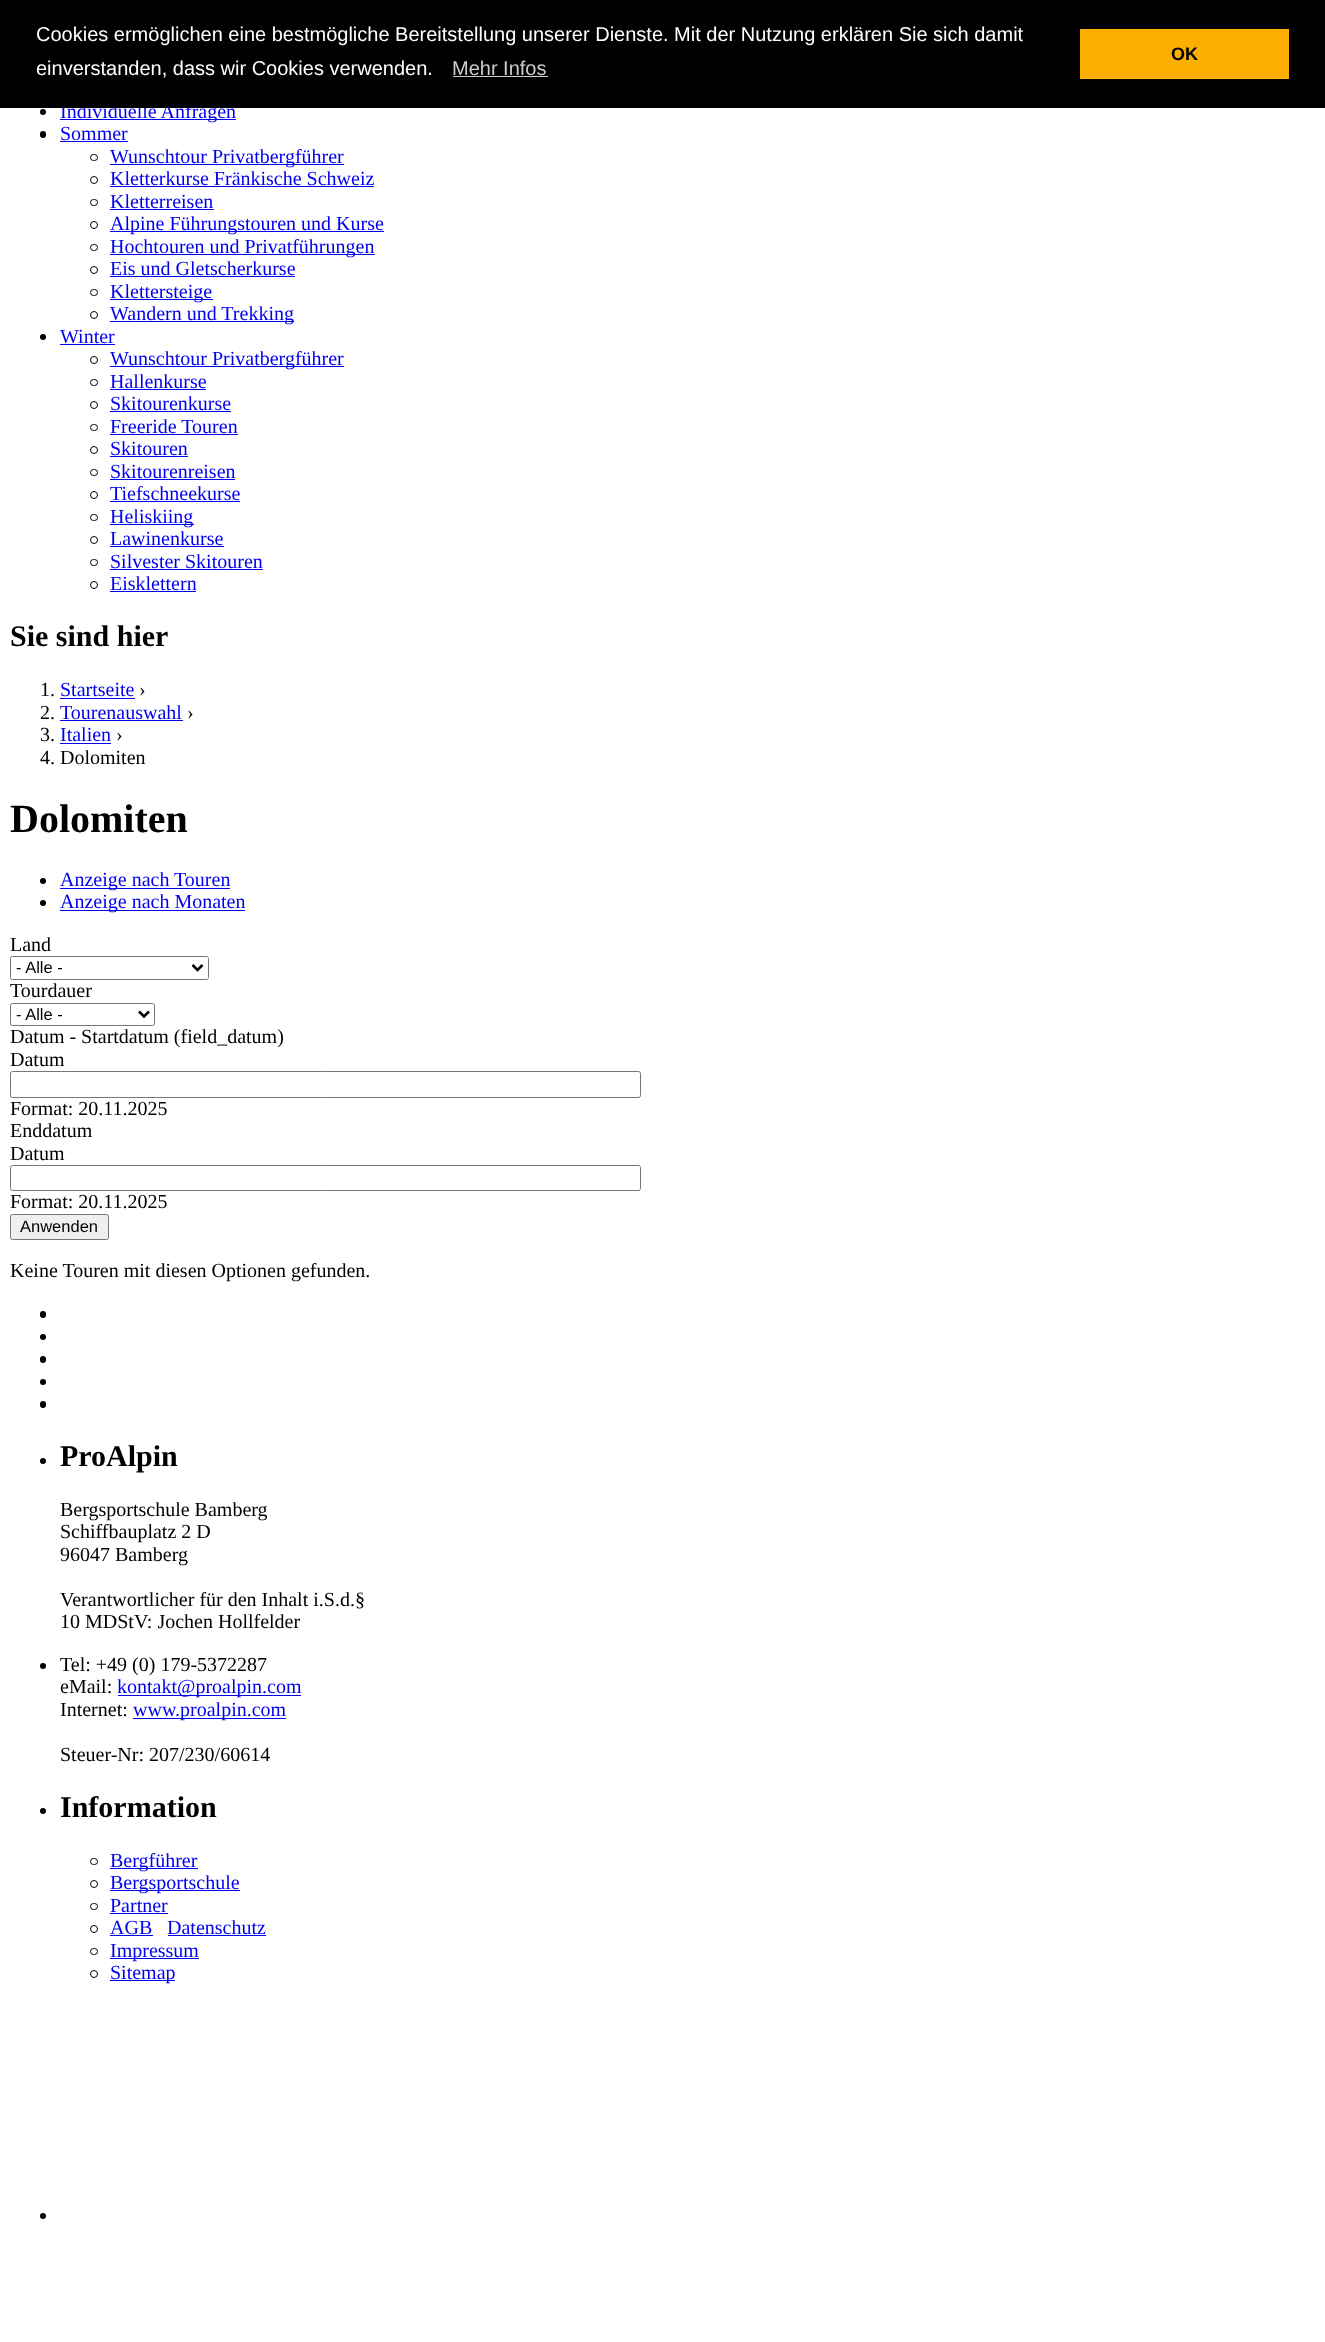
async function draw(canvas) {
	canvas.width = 1325;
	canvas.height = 2342;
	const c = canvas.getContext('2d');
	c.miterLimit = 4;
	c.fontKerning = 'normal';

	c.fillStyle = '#fff';
	c.fillRect(0, 0, 1325, 2342);
	c.fillStyle = '#00e';
	c.fillRect(60, 119, 176, 1);
	c.font = '20px Liberation Serif';
	c.fillText('Individuelle Anfragen', 60, 118);
	c.fillStyle = '#000';
	c.fillRect(0, 0, 1325, 108);
	c.font = '20px Liberation Sans';
	c.fillStyle = '#fff';
	c.fillText('Cookies ermöglichen eine bestmögliche Bereitstellung unserer Dienste. Mit der Nutzung erklären Sie sich damit', 36, 41);
	c.fillText('einverstanden, dass wir Cookies verwenden.', 36, 75);
	c.fillStyle = '#ccc';
	c.fillText('Mehr Infos', 452, 75);
	c.fillRect(453, 76, 95, 1);
	c.fillStyle = '#fcae01';
	c.fillRect(1080, 29, 209, 50);
	c.font = 'bold 18px Liberation Sans';
	c.fillStyle = '#000';
	c.fillText('OK', 1171, 60);
	c.beginPath();
	c.arc(43, 112, 3, 0, 2 * Math.PI);
	c.fill();
	c.beginPath();
	c.roundRect(40, 131, 6, 7, 3);
	c.fill();
	c.font = '20px Liberation Serif';
	c.fillStyle = '#00e';
	c.fillText('Sommer', 60, 140);
	c.fillRect(60, 141, 68, 1);
	c.beginPath();
	c.roundRect(90.5, 154.5, 7, 6, 3);
	c.strokeStyle = '#000';
	c.stroke();
	c.fillRect(110, 164, 234, 1);
	c.fillText('Wunschtour Privatbergführer', 110, 163);
	c.beginPath();
	c.arc(94, 180, 3.5, 0, 2 * Math.PI);
	c.stroke();
	c.fillText('Kletterkurse Fränkische Schweiz', 110, 185);
	c.fillRect(110, 186, 264, 1);
	c.beginPath();
	c.roundRect(90.5, 199.5, 7, 6, 3);
	c.stroke();
	c.fillText('Kletterreisen', 110, 208);
	c.fillRect(110, 209, 104, 1);
	c.beginPath();
	c.arc(94, 225, 3.5, 0, 2 * Math.PI);
	c.stroke();
	c.fillRect(110, 231, 274, 1);
	c.fillText('Alpine Führungstouren und Kurse', 110, 230);
	c.beginPath();
	c.roundRect(90.5, 244.5, 7, 6, 3);
	c.stroke();
	c.fillRect(110, 254, 265, 1);
	c.fillText('Hochtouren und Privatführungen', 110, 253);
	c.beginPath();
	c.arc(94, 270, 3.5, 0, 2 * Math.PI);
	c.stroke();
	c.fillText('Eis und Gletscherkurse', 110, 275);
	c.fillRect(110, 276, 185, 1);
	c.beginPath();
	c.roundRect(90.5, 289.5, 7, 6, 3);
	c.stroke();
	c.fillRect(110, 299, 103, 1);
	c.fillText('Klettersteige', 110, 298);
	c.beginPath();
	c.arc(94, 315, 3.5, 0, 2 * Math.PI);
	c.stroke();
	c.fillRect(110, 321, 184, 1);
	c.fillText('Wandern und Trekking', 110, 320);
	c.fillStyle = '#000';
	c.beginPath();
	c.arc(43, 337, 3, 0, 2 * Math.PI);
	c.fill();
	c.fillStyle = '#00e';
	c.fillText('Winter', 60, 343);
	c.fillRect(60, 344, 55, 1);
	c.beginPath();
	c.arc(94, 360, 3.5, 0, 2 * Math.PI);
	c.stroke();
	c.fillRect(110, 366, 234, 1);
	c.fillText('Wunschtour Privatbergführer', 110, 365);
	c.beginPath();
	c.roundRect(90.5, 379.5, 7, 6, 3);
	c.stroke();
	c.fillText('Hallenkurse', 110, 388);
	c.fillRect(110, 389, 96, 1);
	c.beginPath();
	c.arc(94, 405, 3.5, 0, 2 * Math.PI);
	c.stroke();
	c.fillText('Skitourenkurse', 110, 410);
	c.fillRect(110, 411, 121, 1);
	c.beginPath();
	c.roundRect(90.5, 424.5, 7, 6, 3);
	c.stroke();
	c.fillText('Freeride Touren', 110, 433);
	c.fillRect(110, 434, 128, 1);
	c.beginPath();
	c.arc(94, 450, 3.5, 0, 2 * Math.PI);
	c.stroke();
	c.fillText('Skitouren', 110, 455);
	c.fillRect(110, 456, 78, 1);
	c.beginPath();
	c.roundRect(90.5, 469.5, 7, 6, 3);
	c.stroke();
	c.fillText('Skitourenreisen', 110, 478);
	c.fillRect(110, 479, 125, 1);
	c.beginPath();
	c.arc(94, 495, 3.5, 0, 2 * Math.PI);
	c.stroke();
	c.fillText('Tiefschneekurse', 110, 500);
	c.fillRect(110, 501, 130, 1);
	c.beginPath();
	c.roundRect(90.5, 514.5, 7, 6, 3);
	c.stroke();
	c.fillRect(110, 524, 84, 1);
	c.fillText('Heliskiing', 110, 523);
	c.beginPath();
	c.arc(94, 540, 3.5, 0, 2 * Math.PI);
	c.stroke();
	c.fillText('Lawinenkurse', 110, 545);
	c.fillRect(110, 546, 114, 1);
	c.beginPath();
	c.roundRect(90.5, 559.5, 7, 6, 3);
	c.stroke();
	c.fillText('Silvester Skitouren', 110, 568);
	c.fillRect(110, 569, 153, 1);
	c.beginPath();
	c.arc(94, 585, 3.5, 0, 2 * Math.PI);
	c.stroke();
	c.fillText('Eisklettern', 110, 590);
	c.fillRect(110, 591, 86, 1);
	c.font = 'bold 30px Liberation Serif';
	c.fillStyle = '#000';
	c.fillText('Sie sind hier', 10, 646);
	c.font = '20px Liberation Serif';
	c.fillText('1.', 40, 696);
	c.fillStyle = '#00e';
	c.fillText('Startseite', 60, 696);
	c.fillRect(60, 698, 75, 1);
	c.fillStyle = '#000';
	c.fillText('›', 139, 696);
	c.fillText('2.', 40, 719);
	c.fillStyle = '#00e';
	c.fillText('Tourenauswahl', 60, 719);
	c.fillRect(60, 720, 123, 1);
	c.fillStyle = '#000';
	c.fillText('›', 187, 719);
	c.fillText('3.', 40, 741);
	c.fillStyle = '#00e';
	c.fillText('Italien', 60, 741);
	c.fillRect(60, 743, 51, 1);
	c.fillStyle = '#000';
	c.fillText('›', 116, 741);
	c.fillText('4. Dolomiten', 40, 764);
	c.font = 'bold 40px Liberation Serif';
	c.fillText('Dolomiten', 10, 832);
	c.beginPath();
	c.arc(43, 881, 3, 0, 2 * Math.PI);
	c.fill();
	c.fillStyle = '#00e';
	c.fillRect(60, 888, 170, 1);
	c.font = '20px Liberation Serif';
	c.fillText('Anzeige nach Touren', 60, 886);
	c.fillStyle = '#000';
	c.beginPath();
	c.arc(43, 903, 3, 0, 2 * Math.PI);
	c.fill();
	c.fillStyle = '#00e';
	c.fillRect(60, 910, 185, 1);
	c.fillText('Anzeige nach Monaten', 60, 908);
	c.fillStyle = '#000';
	c.fillText('Land', 10, 951);
	c.beginPath();
	c.roundRect(10.5, 956.5, 198, 23, 2);
	c.strokeStyle = '#767676';
	c.stroke();
	c.beginPath();
	c.moveTo(192.5, 965);
	c.lineTo(197.5, 970);
	c.lineTo(202.5, 965);
	c.strokeStyle = '#000';
	c.lineWidth = 2.5;
	c.stroke();
	c.font = '16.5px Liberation Sans';
	c.fillText('- Alle -', 16, 973);
	c.font = '20px Liberation Serif';
	c.fillText('Tourdauer', 10, 997);
	c.beginPath();
	c.roundRect(10.5, 1003.5, 144, 22, 2);
	c.strokeStyle = '#767676';
	c.lineWidth = 1;
	c.stroke();
	c.beginPath();
	c.moveTo(139, 1011.5);
	c.lineTo(144, 1016.5);
	c.lineTo(149, 1011.5);
	c.strokeStyle = '#000';
	c.lineWidth = 2.5;
	c.stroke();
	c.font = '16.5px Liberation Sans';
	c.fillText('- Alle -', 16, 1020);
	c.font = '20px Liberation Serif';
	c.fillText('Datum - Startdatum (field_datum)', 10, 1043);
	c.fillText('Datum', 10, 1066);
	c.beginPath();
	c.roundRect(10.5, 1071.5, 630, 26, 2);
	c.strokeStyle = '#767676';
	c.lineWidth = 1;
	c.stroke();
	for (const [text, x, y] of [
		['Format: 20.11.2025', 10, 1115],
		['Enddatum', 10, 1137],
		['Datum', 10, 1160],
	]) {
		c.fillText(text, x, y);
	}
	c.beginPath();
	c.roundRect(10.5, 1165.5, 630, 25, 2);
	c.stroke();
	c.fillText('Format: 20.11.2025', 10, 1208);
	c.fillStyle = '#efefef';
	c.beginPath();
	c.roundRect(10.5, 1214.5, 98, 25, 2);
	c.fill();
	c.stroke();
	c.font = '16.5px Liberation Sans';
	c.fillStyle = '#000';
	c.fillText('Anwenden', 20, 1232);
	c.font = '20px Liberation Serif';
	c.fillText('Keine Touren mit diesen Optionen gefunden.', 10, 1277);
	c.beginPath();
	c.roundRect(40, 1311, 6, 7, 3);
	c.fill();
	c.beginPath();
	c.arc(43, 1337, 3, 0, 2 * Math.PI);
	c.fill();
	c.beginPath();
	c.roundRect(40, 1356, 6, 7, 3);
	c.fill();
	c.beginPath();
	c.arc(43, 1382, 3, 0, 2 * Math.PI);
	c.fill();
	c.beginPath();
	c.roundRect(40, 1401, 6, 7, 3);
	c.fill();
	c.beginPath();
	c.arc(43, 1461, 3, 0, 2 * Math.PI);
	c.fill();
	c.font = 'bold 30px Liberation Serif';
	c.fillText('ProAlpin', 60, 1466);
	c.font = '20px Liberation Serif';
	for (const [text, x, y] of [
		['Bergsportschule Bamberg', 60, 1516],
		['Schiffbauplatz 2 D', 60, 1538],
		['96047 Bamberg', 60, 1561],
		['Verantwortlicher für den Inhalt i.S.d.§', 60, 1606],
		['10 MDStV: Jochen Hollfelder', 60, 1628],
	]) {
		c.fillText(text, x, y);
	}
	c.beginPath();
	c.arc(43, 1666, 3, 0, 2 * Math.PI);
	c.fill();
	c.fillText('Tel: +49 (0) 179-5372287', 60, 1671);
	c.fillText('eMail:', 60, 1693);
	c.fillStyle = '#00e';
	c.fillRect(118, 1695, 183, 1);
	c.fillText('kontakt@proalpin.com', 117, 1693);
	c.fillStyle = '#000';
	c.fillText('Internet:', 60, 1716);
	c.fillStyle = '#00e';
	c.fillRect(133, 1718, 153, 1);
	c.fillText('www.proalpin.com', 133, 1716);
	c.fillStyle = '#000';
	c.fillText('Steuer-Nr: 207/230/60614', 60, 1761);
	c.beginPath();
	c.arc(43, 1811, 3, 0, 2 * Math.PI);
	c.fill();
	c.font = 'bold 30px Liberation Serif';
	c.fillText('Information', 60, 1817);
	c.beginPath();
	c.roundRect(90.5, 1858.5, 7, 6, 3);
	c.strokeStyle = '#000';
	c.stroke();
	c.fillStyle = '#00e';
	c.fillRect(110, 1868, 88, 1);
	c.font = '20px Liberation Serif';
	c.fillText('Bergführer', 110, 1867);
	c.beginPath();
	c.arc(94, 1884, 3.5, 0, 2 * Math.PI);
	c.stroke();
	c.fillRect(110, 1890, 130, 1);
	c.fillText('Bergsportschule', 110, 1889);
	c.beginPath();
	c.roundRect(90.5, 1903.5, 7, 6, 3);
	c.stroke();
	c.fillText('Partner', 110, 1912);
	c.fillRect(110, 1913, 58, 1);
	c.beginPath();
	c.arc(94, 1929, 3.5, 0, 2 * Math.PI);
	c.stroke();
	c.fillText('AGB', 110, 1934);
	c.fillRect(110, 1935, 43, 1);
	c.fillText('Datenschutz', 167, 1934);
	c.fillRect(168, 1935, 98, 1);
	c.beginPath();
	c.roundRect(90.5, 1948.5, 7, 6, 3);
	c.stroke();
	c.fillRect(110, 1958, 89, 1);
	c.fillText('Impressum', 110, 1957);
	c.beginPath();
	c.arc(94, 1974, 3.5, 0, 2 * Math.PI);
	c.stroke();
	c.fillRect(110, 1980, 65, 1);
	c.fillText('Sitemap', 110, 1979);
	c.fillStyle = '#000';
	c.beginPath();
	c.arc(43, 2216, 3, 0, 2 * Math.PI);
	c.fill();
}

draw(document.querySelector('canvas'));
